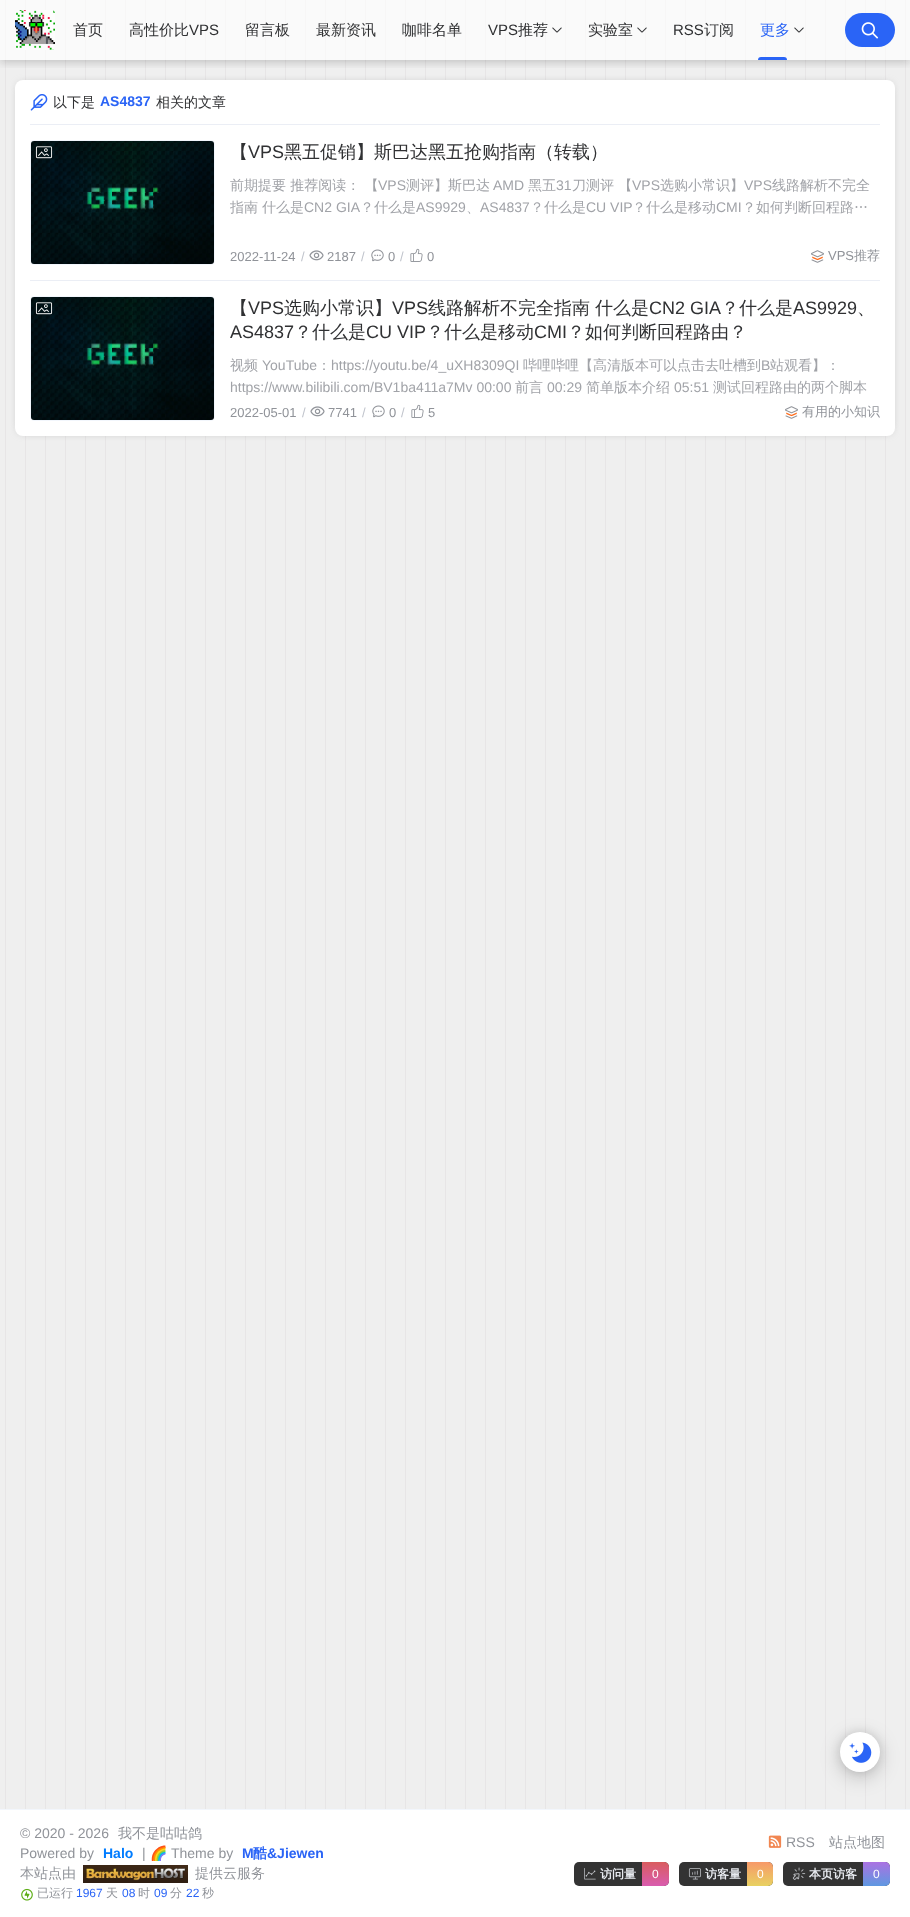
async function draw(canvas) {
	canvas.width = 910;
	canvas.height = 1917;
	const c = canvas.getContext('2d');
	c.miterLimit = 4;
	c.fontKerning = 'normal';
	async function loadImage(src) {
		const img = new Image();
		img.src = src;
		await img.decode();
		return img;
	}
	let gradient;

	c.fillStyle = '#efefef';
	c.fillRect(0, 0, 910, 1917);
	c.drawImage(await loadImage('img1.png'), 5, 0, 901, 1809);
	c.save();
	c.beginPath();
	c.rect(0, 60, 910, 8);
	c.clip();
	c.fillStyle = '#00000033';
	c.filter = 'blur(5px)';
	c.beginPath();
	c.rect(0, 2, 910, 60);
	c.fill();
	c.filter = 'none';
	c.restore();
	c.fillStyle = '#ffffffa6';
	c.fillRect(0, 0, 910, 60);
	c.drawImage(await loadImage('img2.png'), 15, 10, 40, 40);
	c.font = '500 15px WenQuanYi Zen Hei';
	c.fillStyle = '#303133';
	c.fillText('首页', 73, 35);
	c.fillText('高性价比', 129, 35);
	c.font = '15px Liberation Sans';
	c.fillText('VPS', 189, 35);
	c.font = '500 15px WenQuanYi Zen Hei';
	for (const [text, x, y] of [
		['留言板', 245, 35],
		['最新资讯', 316, 35],
		['咖啡名单', 402, 35],
	]) {
		c.fillText(text, x, y);
	}
	c.font = '15px Liberation Sans';
	c.fillText('VPS', 488, 35);
	c.font = '500 15px WenQuanYi Zen Hei';
	c.fillText('推荐', 518, 35);
	c.drawImage(await loadImage('img3.png'), 552, 27, 10, 6);
	c.fillText('实验室', 588, 35);
	c.drawImage(await loadImage('img4.png'), 637, 27, 10, 6);
	c.font = '15px Liberation Sans';
	c.fillText('RSS', 673, 35);
	c.font = '500 15px WenQuanYi Zen Hei';
	c.fillText('订阅', 704, 35);
	c.fillStyle = '#2a64f6';
	c.fillText('更多', 760, 35);
	c.beginPath();
	c.roundRect(758, 57, 29, 3, [3, 3, 0, 0]);
	c.fill();
	c.drawImage(await loadImage('img3.png'), 794, 27, 10, 6);
	c.beginPath();
	c.roundRect(845, 13, 50, 34, 17);
	c.fill();
	c.drawImage(await loadImage('img5.png'), 861, 22, 18, 17);
	c.fillStyle = '#949494';
	c.filter = 'blur(5px)';
	c.beginPath();
	c.roundRect(20, 85, 870, 346, 3);
	c.fill();
	c.filter = 'none';
	c.fillStyle = '#fff';
	c.beginPath();
	c.roundRect(15, 80, 880, 356, 8);
	c.fill();
	c.fillStyle = '#ebeef5';
	c.fillRect(30, 124, 850, 1);
	c.drawImage(await loadImage('img6.png'), 30, 94, 18, 17);
	c.font = '500 14px WenQuanYi Zen Hei';
	c.fillStyle = '#303133';
	c.fillText('以下是', 53, 107);
	c.font = 'bold 14px Liberation Sans';
	c.fillStyle = '#2a64f6';
	c.fillText('AS4837', 100, 106);
	c.font = '500 14px WenQuanYi Zen Hei';
	c.fillStyle = '#303133';
	c.fillText('相关的文章', 156, 107);
	c.fillStyle = '#ebeef5';
	c.fillRect(30, 280, 850, 1);
	c.beginPath();
	c.roundRect(30.5, 140.5, 184, 124, 3.5);
	c.strokeStyle = '#f2f6fc';
	c.stroke();
	c.drawImage(await loadImage('img7.png'), 31, 141, 183, 123);
	c.drawImage(await loadImage('img8.png'), 35, 146, 18, 13);
	c.font = '500 18px WenQuanYi Zen Hei';
	c.fillStyle = '#303133';
	c.fillText('【', 230, 158);
	c.font = '18px Liberation Sans';
	c.fillText('VPS', 248, 158);
	c.font = '500 18px WenQuanYi Zen Hei';
	c.fillText('黑五促销】斯巴达黑五抢购指南（转载）', 284, 158);
	c.font = '500 14px WenQuanYi Zen Hei';
	c.fillStyle = '#a1a3a8';
	c.fillText('前期提要 推荐阅读： 【', 230, 190);
	c.font = '14px Liberation Sans';
	c.fillText('VPS', 378, 190);
	c.font = '500 14px WenQuanYi Zen Hei';
	c.fillText('测评】斯巴达', 406, 190);
	c.font = '14px Liberation Sans';
	c.fillText('AMD', 493, 190);
	c.font = '500 14px WenQuanYi Zen Hei';
	c.fillText('黑五', 528, 190);
	c.font = '14px Liberation Sans';
	c.fillText('31', 556, 190);
	c.font = '500 14px WenQuanYi Zen Hei';
	c.fillText('刀测评 【', 572, 190);
	c.font = '14px Liberation Sans';
	c.fillText('VPS', 632, 190);
	c.font = '500 14px WenQuanYi Zen Hei';
	c.fillText('选购小常识】', 660, 190);
	c.font = '14px Liberation Sans';
	c.fillText('VPS', 744, 190);
	c.font = '500 14px WenQuanYi Zen Hei';
	for (const [text, x, y] of [
		['线路解析不完全', 772, 190],
		['指南', 230, 212],
		['什么是', 262, 212],
	]) {
		c.fillText(text, x, y);
	}
	c.font = '14px Liberation Sans';
	c.fillText('CN2 GIA', 304, 212);
	c.font = '500 14px WenQuanYi Zen Hei';
	c.fillText('？什么是', 360, 212);
	c.font = '14px Liberation Sans';
	c.fillText('AS9929', 416, 212);
	c.font = '500 14px WenQuanYi Zen Hei';
	c.fillText('、', 466, 212);
	c.font = '14px Liberation Sans';
	c.fillText('AS4837', 480, 212);
	c.font = '500 14px WenQuanYi Zen Hei';
	c.fillText('？什么是', 530, 212);
	c.font = '14px Liberation Sans';
	c.fillText('CU VIP', 586, 212);
	c.font = '500 14px WenQuanYi Zen Hei';
	c.fillText('？什么是移动', 632, 212);
	c.font = '14px Liberation Sans';
	c.fillText('CMI', 716, 212);
	c.font = '500 14px WenQuanYi Zen Hei';
	c.fillText('？如何判断回程路…', 742, 212);
	c.font = '13px Liberation Sans';
	c.fillStyle = '#909399';
	c.fillText('2022-11-24', 230, 261);
	c.fillStyle = '#c0c4cc';
	c.fillText('/', 301, 261);
	c.drawImage(await loadImage('img9.png'), 309, 250, 15, 11);
	c.fillStyle = '#909399';
	c.fillText('2187', 327, 261);
	c.fillStyle = '#c0c4cc';
	c.fillText('/', 361, 261);
	c.drawImage(await loadImage('img10.png'), 371, 249, 13, 13);
	c.fillStyle = '#909399';
	c.fillText('0', 388, 261);
	c.fillStyle = '#c0c4cc';
	c.fillText('/', 400, 261);
	c.drawImage(await loadImage('img11.png'), 410, 248, 13, 14);
	c.fillStyle = '#909399';
	c.fillText('0', 427, 261);
	c.drawImage(await loadImage('img12.png'), 811, 250, 13, 13);
	c.fillText('VPS', 828, 260);
	c.font = '500 13px WenQuanYi Zen Hei';
	c.fillText('推荐', 854, 260);
	c.beginPath();
	c.roundRect(30.5, 296.5, 184, 124, 3.5);
	c.stroke();
	c.drawImage(await loadImage('img7.png'), 31, 297, 183, 123);
	c.drawImage(await loadImage('img8.png'), 35, 302, 18, 13);
	c.font = '500 18px WenQuanYi Zen Hei';
	c.fillStyle = '#303133';
	c.fillText('【', 230, 314);
	c.font = '18px Liberation Sans';
	c.fillText('VPS', 248, 314);
	c.font = '500 18px WenQuanYi Zen Hei';
	c.fillText('选购小常识】', 284, 314);
	c.font = '18px Liberation Sans';
	c.fillText('VPS', 392, 314);
	c.font = '500 18px WenQuanYi Zen Hei';
	c.fillText('线路解析不完全指南', 428, 314);
	c.fillText('什么是', 595, 314);
	c.font = '18px Liberation Sans';
	c.fillText('CN2 GIA', 649, 314);
	c.font = '500 18px WenQuanYi Zen Hei';
	c.fillText('？什么是', 721, 314);
	c.font = '18px Liberation Sans';
	c.fillText('AS9929', 793, 314);
	c.font = '500 18px WenQuanYi Zen Hei';
	c.fillText('、', 857, 314);
	c.font = '18px Liberation Sans';
	c.fillText('AS4837', 230, 338);
	c.font = '500 18px WenQuanYi Zen Hei';
	c.fillText('？什么是', 294, 338);
	c.font = '18px Liberation Sans';
	c.fillText('CU VIP', 366, 338);
	c.font = '500 18px WenQuanYi Zen Hei';
	c.fillText('？什么是移动', 426, 338);
	c.font = '18px Liberation Sans';
	c.fillText('CMI', 534, 338);
	c.font = '500 18px WenQuanYi Zen Hei';
	c.fillText('？如何判断回程路由？', 567, 338);
	c.font = '500 14px WenQuanYi Zen Hei';
	c.fillStyle = '#a1a3a8';
	c.fillText('视频', 230, 370);
	c.font = '14px Liberation Sans';
	c.fillText('YouTube', 262, 370);
	c.font = '500 14px WenQuanYi Zen Hei';
	c.fillText('：', 317, 370);
	c.font = '14px Liberation Sans';
	c.fillText('https://youtu.be/4_uXH8309QI', 331, 370);
	c.font = '500 14px WenQuanYi Zen Hei';
	c.fillText('哔哩哔哩【高清版本可以点击去吐槽到', 523, 370);
	c.font = '14px Liberation Sans';
	c.fillText('B', 761, 370);
	c.font = '500 14px WenQuanYi Zen Hei';
	c.fillText('站观看】：', 770, 370);
	c.font = '14px Liberation Sans';
	c.fillText('https://www.bilibili.com/BV1ba411a7Mv 00:00', 230, 392);
	c.font = '500 14px WenQuanYi Zen Hei';
	c.fillText('前言', 515, 392);
	c.font = '14px Liberation Sans';
	c.fillText('00:29', 547, 392);
	c.font = '500 14px WenQuanYi Zen Hei';
	c.fillText('简单版本介绍', 586, 392);
	c.font = '14px Liberation Sans';
	c.fillText('05:51', 674, 392);
	c.font = '500 14px WenQuanYi Zen Hei';
	c.fillText('测试回程路由的两个脚本', 713, 392);
	c.font = '13px Liberation Sans';
	c.fillStyle = '#909399';
	c.fillText('2022-05-01', 230, 417);
	c.fillStyle = '#c0c4cc';
	c.fillText('/', 302, 417);
	c.drawImage(await loadImage('img9.png'), 310, 406, 15, 11);
	c.fillStyle = '#909399';
	c.fillText('7741', 328, 417);
	c.fillStyle = '#c0c4cc';
	c.fillText('/', 362, 417);
	c.drawImage(await loadImage('img10.png'), 372, 405, 13, 13);
	c.fillStyle = '#909399';
	c.fillText('0', 389, 417);
	c.fillStyle = '#c0c4cc';
	c.fillText('/', 401, 417);
	c.drawImage(await loadImage('img11.png'), 411, 404, 13, 14);
	c.fillStyle = '#909399';
	c.fillText('5', 428, 417);
	c.drawImage(await loadImage('img12.png'), 785, 406, 13, 13);
	c.font = '500 13px WenQuanYi Zen Hei';
	c.fillText('有用的小知识', 802, 416);
	c.fillStyle = '#00000033';
	c.filter = 'blur(10px)';
	c.beginPath();
	c.roundRect(840, 1737, 40, 40, 20);
	c.fill();
	c.filter = 'none';
	c.fillStyle = '#0000001a';
	c.filter = 'blur(5px)';
	c.beginPath();
	c.roundRect(840, 1732, 40, 40, 20);
	c.fill();
	c.filter = 'none';
	c.fillStyle = '#fff';
	c.beginPath();
	c.arc(860, 1752, 20, 0, 2 * Math.PI);
	c.fill();
	c.drawImage(await loadImage('img13.png'), 849, 1742, 23, 21);
	c.fillRect(0, 1810, 910, 107);
	c.fillStyle = '#f2f6fc';
	c.fillRect(0, 1809, 910, 1);
	c.font = '14px Liberation Sans';
	c.fillStyle = '#909399';
	c.fillText('© 2020 - 2026', 20, 1838);
	c.font = '500 14px WenQuanYi Zen Hei';
	c.fillText('我不是咕咕鸽', 118, 1838);
	c.font = '14px Liberation Sans';
	c.fillText('Powered by', 20, 1858);
	c.font = 'bold 14px Liberation Sans';
	c.fillStyle = '#007cff';
	c.fillText('Halo', 103, 1858);
	c.font = '14px Liberation Sans';
	c.fillStyle = '#909399';
	c.fillText('|', 142, 1858);
	c.font = '14px Noto Color Emoji';
	c.fillText('🌈', 150, 1858);
	c.font = '14px Liberation Sans';
	c.fillText('Theme by', 171, 1858);
	c.font = 'bold 14px Liberation Sans';
	c.fillStyle = '#2a64f6';
	c.fillText('M', 242, 1858);
	c.font = 'bold 14px WenQuanYi Zen Hei';
	c.fillText('酷', 253, 1858);
	c.font = 'bold 14px Liberation Sans';
	c.fillText('&Jiewen', 267, 1858);
	c.font = '500 14px WenQuanYi Zen Hei';
	c.fillStyle = '#909399';
	c.fillText('本站点由', 20, 1878);
	c.drawImage(await loadImage('img14.png'), 83, 1865, 105, 18);
	c.fillText('提供云服务', 195, 1878);
	c.drawImage(await loadImage('img15.png'), 21, 1888, 12, 13);
	c.font = '500 12px WenQuanYi Zen Hei';
	c.fillText('已运行', 37, 1897);
	c.font = '12px Liberation Sans';
	c.fillStyle = '#2a64f6';
	c.fillText('1967', 76, 1897);
	c.font = '500 12px WenQuanYi Zen Hei';
	c.fillStyle = '#909399';
	c.fillText('天', 106, 1897);
	c.font = '12px Liberation Sans';
	c.fillStyle = '#2a64f6';
	c.fillText('08', 122, 1897);
	c.font = '500 12px WenQuanYi Zen Hei';
	c.fillStyle = '#909399';
	c.fillText('时', 138, 1897);
	c.font = '12px Liberation Sans';
	c.fillStyle = '#2a64f6';
	c.fillText('09', 154, 1897);
	c.font = '500 12px WenQuanYi Zen Hei';
	c.fillStyle = '#909399';
	c.fillText('分', 170, 1897);
	c.font = '12px Liberation Sans';
	c.fillStyle = '#2a64f6';
	c.fillText('22', 186, 1897);
	c.font = '500 12px WenQuanYi Zen Hei';
	c.fillStyle = '#909399';
	c.fillText('秒', 202, 1897);
	c.drawImage(await loadImage('img16.png'), 768, 1835, 14, 13);
	c.font = '14px Liberation Sans';
	c.fillText('RSS', 786, 1847);
	c.font = '500 14px WenQuanYi Zen Hei';
	c.fillText('站点地图', 829, 1847);
	c.fillStyle = '#333';
	c.beginPath();
	c.roundRect(574, 1862, 95, 24, 5);
	c.fill();
	c.drawImage(await loadImage('img17.png'), 584, 1868, 12, 12);
	c.font = 'bold 12px WenQuanYi Zen Hei';
	c.fillStyle = '#e9ecf1';
	c.fillText('访问量', 600, 1878);
	gradient = c.createLinearGradient(656, 1886, 656, 1862);
	gradient.addColorStop(0, '#d95caf');
	gradient.addColorStop(1, '#d95c5e');
	c.fillStyle = gradient;
	c.beginPath();
	c.roundRect(642, 1862, 27, 24, [0, 5, 5, 0]);
	c.fill();
	c.font = '12px Liberation Sans';
	c.fillStyle = '#fff';
	c.fillText('0', 652, 1878);
	c.fillStyle = '#333';
	c.beginPath();
	c.roundRect(679, 1862, 94, 24, 5);
	c.fill();
	c.drawImage(await loadImage('img18.png'), 688, 1868, 13, 12);
	c.font = 'bold 12px WenQuanYi Zen Hei';
	c.fillStyle = '#e9ecf1';
	c.fillText('访客量', 705, 1878);
	gradient = c.createLinearGradient(760, 1886, 760, 1862);
	gradient.addColorStop(0, '#e8d161');
	gradient.addColorStop(1, '#f79969');
	c.fillStyle = gradient;
	c.beginPath();
	c.roundRect(747, 1862, 26, 24, [0, 5, 5, 0]);
	c.fill();
	c.font = '12px Liberation Sans';
	c.fillStyle = '#fff';
	c.fillText('0', 757, 1878);
	c.fillStyle = '#333';
	c.beginPath();
	c.roundRect(783, 1862, 107, 24, 5);
	c.fill();
	c.drawImage(await loadImage('img19.png'), 792, 1867, 14, 13);
	c.font = 'bold 12px WenQuanYi Zen Hei';
	c.fillStyle = '#e9ecf1';
	c.fillText('本页访客', 809, 1878);
	gradient = c.createLinearGradient(877, 1886, 877, 1862);
	gradient.addColorStop(0, '#5e98e1');
	gradient.addColorStop(1, '#ab72e2');
	c.fillStyle = gradient;
	c.beginPath();
	c.roundRect(863, 1862, 27, 24, [0, 5, 5, 0]);
	c.fill();
	c.font = '12px Liberation Sans';
	c.fillStyle = '#fff';
	c.fillText('0', 873, 1878);
}

draw(document.querySelector('canvas'));
